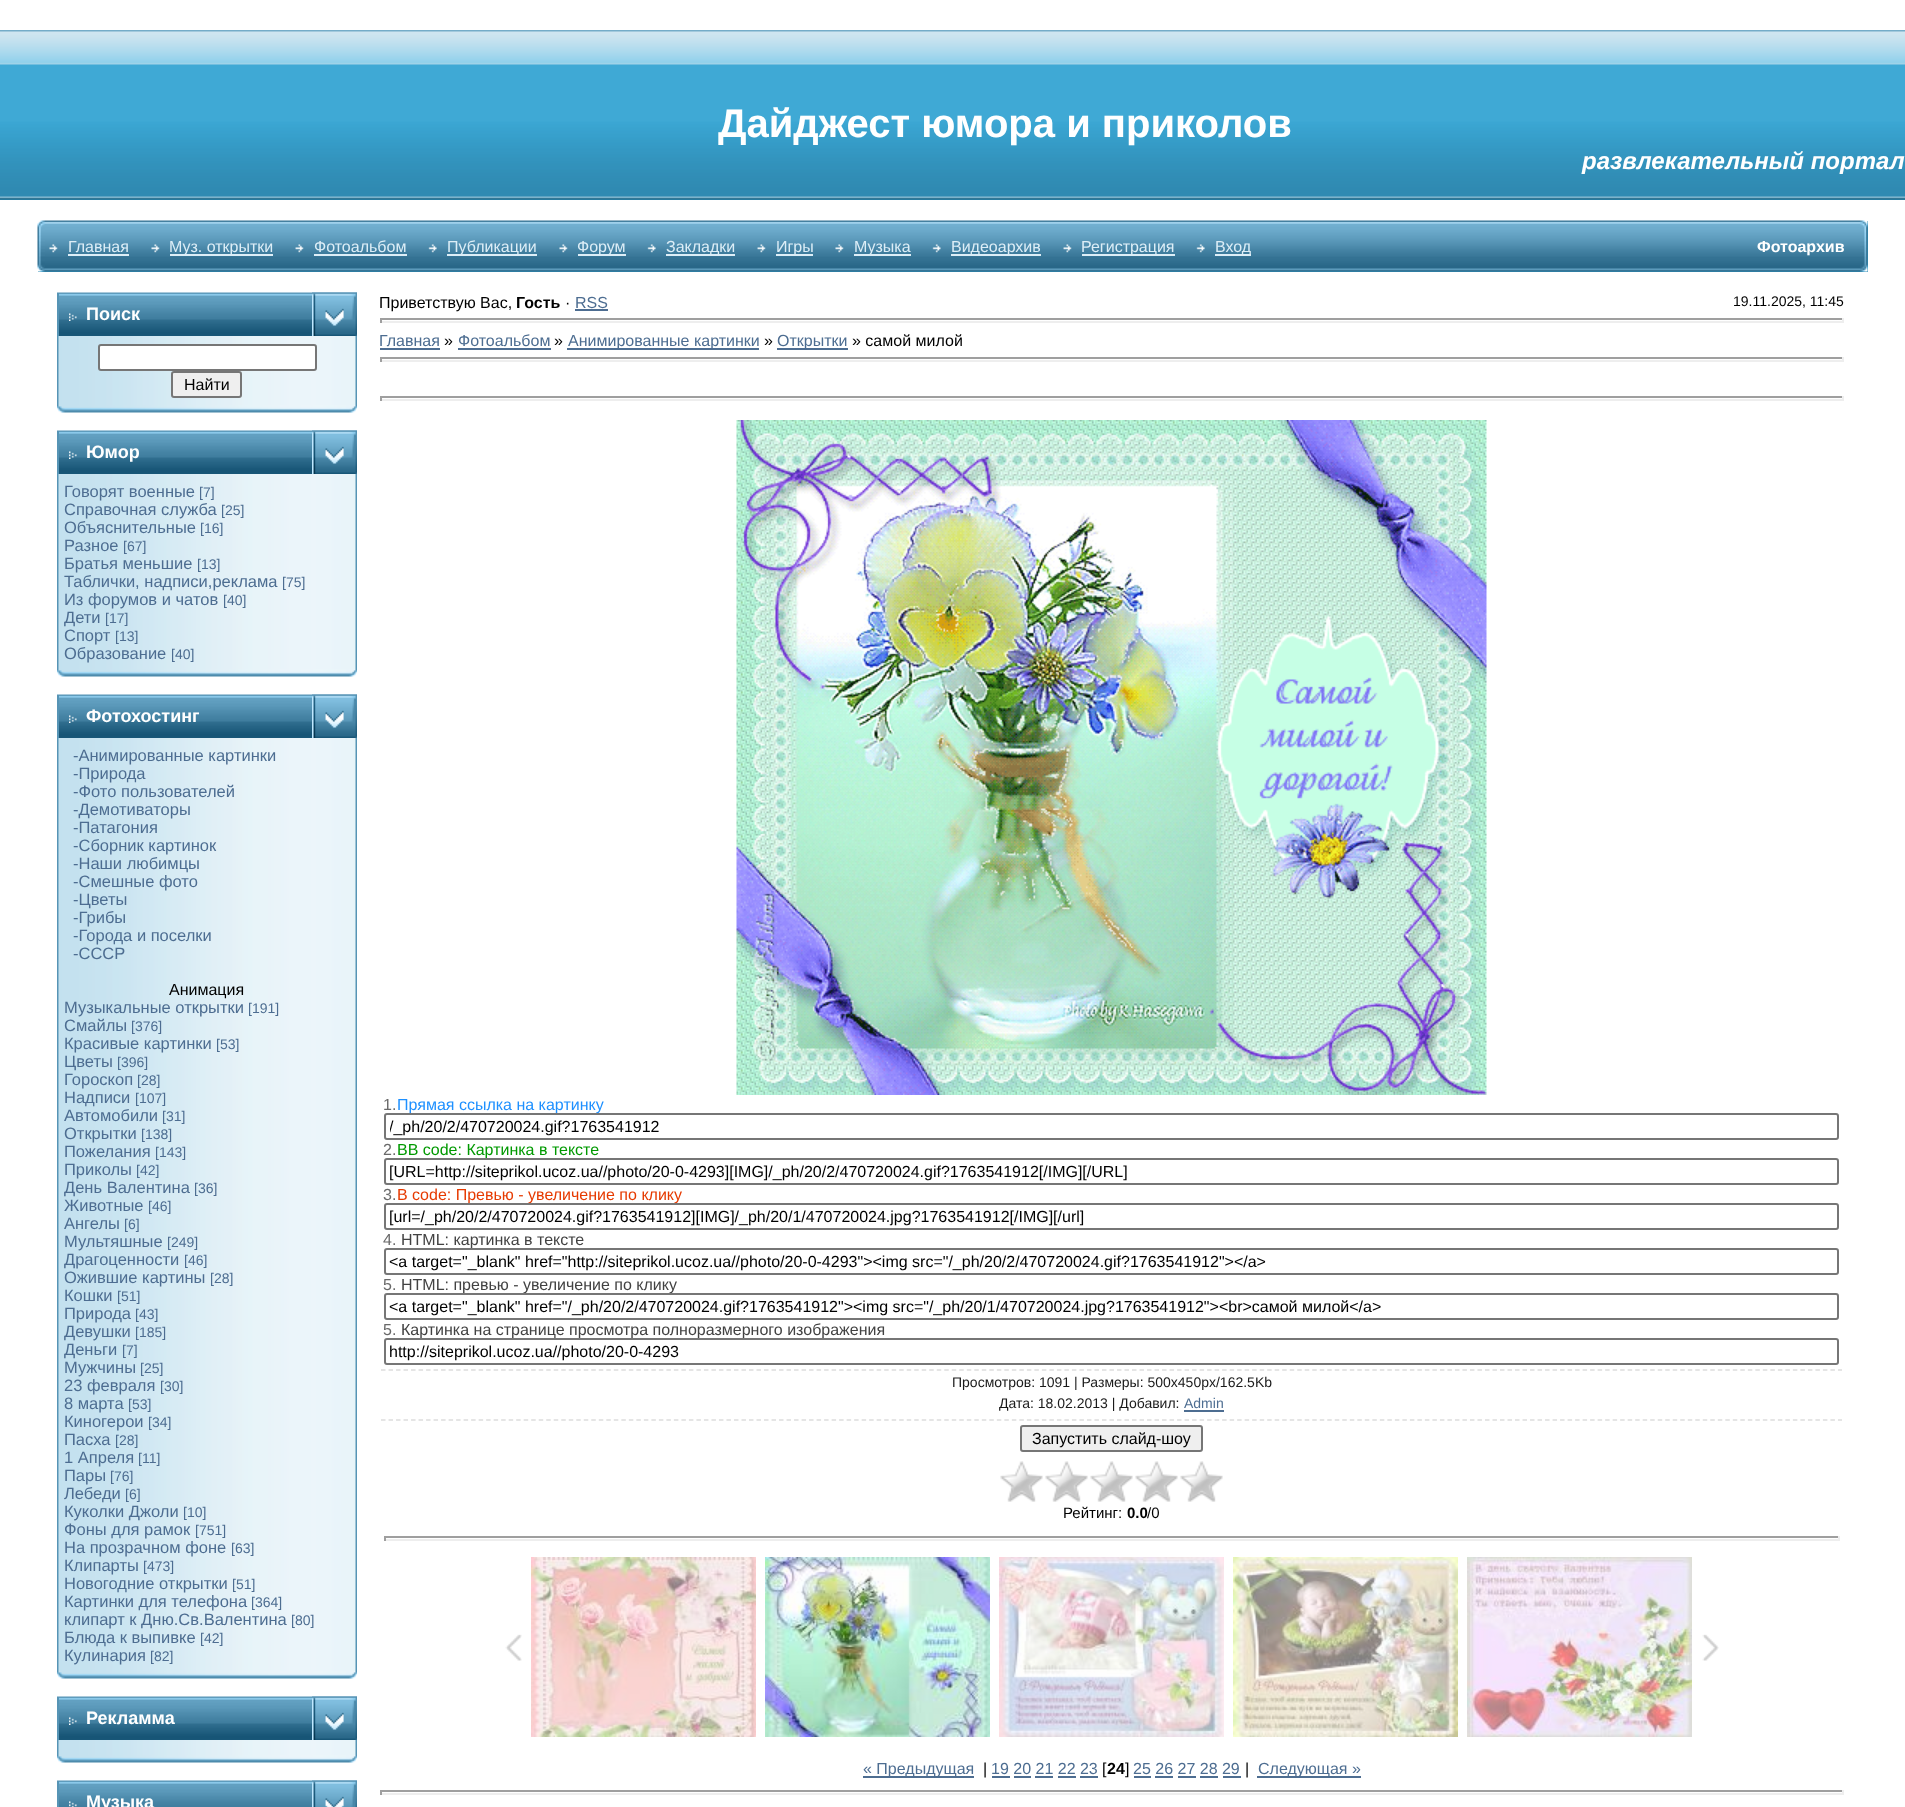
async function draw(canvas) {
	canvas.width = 1905;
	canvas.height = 1807;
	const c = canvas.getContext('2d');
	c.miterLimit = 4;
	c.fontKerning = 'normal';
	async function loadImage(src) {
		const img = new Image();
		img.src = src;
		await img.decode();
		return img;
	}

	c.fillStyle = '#fff';
	c.fillRect(0, 0, 1905, 1807);
	c.fillStyle = '#318eb7';
	c.fillRect(0, 199, 1905, 1);
	c.drawImage(await loadImage('img1.png'), 0, 30, 1905, 170);
	c.font = 'bold 40px Liberation Sans';
	c.fillStyle = '#fff';
	c.fillText('Дайджест юмора и приколов', 718, 137);
	c.font = 'italic bold 24px Liberation Sans';
	c.fillText('развлекательный портал', 1582, 169);
	c.fillStyle = '#318eb7';
	c.fillRect(38, 271, 1822, 1);
	c.drawImage(await loadImage('img2.png'), 37, 220, 8, 52);
	c.fillRect(1860, 221, 8, 51);
	c.drawImage(await loadImage('img3.png'), 1860, 220, 8, 52);
	c.drawImage(await loadImage('img4.png'), 45, 220, 1278, 52);
	c.drawImage(await loadImage('img5.png'), 49, 244, 9, 9);
	c.font = '16px Liberation Sans';
	c.fillStyle = '#ddeef7';
	c.fillText('Главная', 68, 252);
	c.fillRect(68, 254, 61, 2);
	c.drawImage(await loadImage('img5.png'), 151, 244, 9, 9);
	c.fillRect(170, 254, 103, 2);
	c.fillText('Муз. открытки', 169, 252);
	c.drawImage(await loadImage('img6.png'), 295, 244, 9, 9);
	c.fillText('Фотоальбом', 314, 252);
	c.fillRect(314, 254, 93, 2);
	c.drawImage(await loadImage('img7.png'), 428, 244, 9, 9);
	c.fillRect(447, 254, 90, 2);
	c.fillText('Публикации', 447, 252);
	c.drawImage(await loadImage('img5.png'), 559, 244, 9, 9);
	c.fillRect(578, 254, 48, 2);
	c.fillText('Форум', 577, 252);
	c.drawImage(await loadImage('img7.png'), 647, 244, 9, 9);
	c.fillRect(666, 254, 69, 2);
	c.fillText('Закладки', 666, 252);
	c.drawImage(await loadImage('img8.png'), 757, 244, 9, 9);
	c.fillRect(776, 254, 37, 2);
	c.fillText('Игры', 776, 252);
	c.drawImage(await loadImage('img5.png'), 835, 244, 9, 9);
	c.fillRect(854, 254, 57, 2);
	c.fillText('Музыка', 854, 252);
	c.drawImage(await loadImage('img9.png'), 932, 244, 9, 9);
	c.fillRect(951, 254, 90, 2);
	c.fillText('Видеоархив', 951, 252);
	c.drawImage(await loadImage('img6.png'), 1063, 244, 9, 9);
	c.fillRect(1082, 254, 93, 2);
	c.fillText('Регистрация', 1081, 252);
	c.drawImage(await loadImage('img7.png'), 1196, 244, 9, 9);
	c.fillRect(1215, 254, 36, 2);
	c.fillText('Вход', 1215, 252);
	c.drawImage(await loadImage('img10.png'), 1323, 220, 537, 52);
	c.font = 'bold 16px Liberation Sans';
	c.fillStyle = '#fff';
	c.fillText('Фотоархив', 1757, 252);
	c.drawImage(await loadImage('img11.png'), 57, 292, 255, 44);
	c.fillStyle = '#5694b5';
	c.fillRect(57, 293, 2, 43);
	c.drawImage(await loadImage('img12.png'), 69, 313, 8, 8);
	c.font = 'bold 18px Liberation Sans';
	c.fillStyle = '#fff';
	c.fillText('Поиск', 86, 320);
	c.drawImage(await loadImage('img13.png'), 312, 292, 45, 1);
	c.drawImage(await loadImage('img14.png'), 312, 292, 45, 44);
	c.drawImage(await loadImage('img15.png'), 57, 336, 300, 69);
	c.beginPath();
	c.roundRect(99, 345, 217, 25, 2);
	c.fill();
	c.strokeStyle = '#767676';
	c.lineWidth = 2;
	c.stroke();
	c.fillStyle = '#efefef';
	c.beginPath();
	c.roundRect(172, 372, 69, 25, 2);
	c.fill();
	c.stroke();
	c.font = '16px Liberation Sans';
	c.fillStyle = '#000';
	c.fillText('Найти', 184, 390);
	c.drawImage(await loadImage('img16.png'), 57, 405, 300, 8);
	c.drawImage(await loadImage('img11.png'), 57, 430, 255, 44);
	c.fillStyle = '#5694b5';
	c.fillRect(57, 431, 2, 43);
	c.drawImage(await loadImage('img12.png'), 69, 451, 8, 8);
	c.font = 'bold 18px Liberation Sans';
	c.fillStyle = '#fff';
	c.fillText('Юмор', 86, 458);
	c.drawImage(await loadImage('img13.png'), 312, 430, 45, 1);
	c.drawImage(await loadImage('img14.png'), 312, 430, 45, 44);
	c.drawImage(await loadImage('img17.png'), 57, 474, 300, 195);
	c.font = '16.5px Liberation Sans';
	c.fillStyle = '#4d6d91';
	c.fillText('Говорят военные', 64, 497);
	c.font = '14px Liberation Sans';
	c.fillText('[7]', 199, 497);
	c.font = '16.5px Liberation Sans';
	c.fillText('Справочная служба', 64, 515);
	c.font = '14px Liberation Sans';
	c.fillText('[25]', 221, 515);
	c.font = '16.5px Liberation Sans';
	c.fillText('Объяснительные', 64, 533);
	c.font = '14px Liberation Sans';
	c.fillText('[16]', 200, 533);
	c.font = '16.5px Liberation Sans';
	c.fillText('Разное', 64, 551);
	c.font = '14px Liberation Sans';
	c.fillText('[67]', 123, 551);
	c.font = '16.5px Liberation Sans';
	c.fillText('Братья меньшие', 64, 569);
	c.font = '14px Liberation Sans';
	c.fillText('[13]', 197, 569);
	c.font = '16.5px Liberation Sans';
	c.fillText('Таблички, надписи,реклама', 64, 587);
	c.font = '14px Liberation Sans';
	c.fillText('[75]', 282, 587);
	c.font = '16.5px Liberation Sans';
	c.fillText('Из форумов и чатов', 64, 605);
	c.font = '14px Liberation Sans';
	c.fillText('[40]', 223, 605);
	c.font = '16.5px Liberation Sans';
	c.fillText('Дети', 64, 623);
	c.font = '14px Liberation Sans';
	c.fillText('[17]', 105, 623);
	c.font = '16.5px Liberation Sans';
	c.fillText('Спорт', 64, 641);
	c.font = '14px Liberation Sans';
	c.fillText('[13]', 115, 641);
	c.font = '16.5px Liberation Sans';
	c.fillText('Образование', 64, 659);
	c.font = '14px Liberation Sans';
	c.fillText('[40]', 171, 659);
	c.drawImage(await loadImage('img16.png'), 57, 669, 300, 8);
	c.drawImage(await loadImage('img11.png'), 57, 694, 255, 44);
	c.fillStyle = '#5694b5';
	c.fillRect(57, 695, 2, 43);
	c.drawImage(await loadImage('img12.png'), 69, 715, 8, 8);
	c.font = 'bold 18px Liberation Sans';
	c.fillStyle = '#fff';
	c.fillText('Фотохостинг', 86, 722);
	c.drawImage(await loadImage('img13.png'), 312, 694, 45, 1);
	c.drawImage(await loadImage('img14.png'), 312, 694, 45, 44);
	c.drawImage(await loadImage('img18.png'), 57, 738, 300, 933);
	c.font = '16.5px Liberation Sans';
	c.fillStyle = '#4d6d91';
	for (const [text, x, y] of [
		['-Анимированные картинки', 73, 761],
		['-Природа', 73, 779],
		['-Фото пользователей', 73, 797],
		['-Демотиваторы', 73, 815],
		['-Патагония', 73, 833],
		['-Cборник картинок', 73, 851],
		['-Наши любимцы', 73, 869],
		['-Смешные фото', 73, 887],
		['-Цветы', 73, 905],
		['-Грибы', 73, 923],
		['-Города и поселки', 73, 941],
		['-СССР', 73, 959],
	]) {
		c.fillText(text, x, y);
	}
	c.font = '16px Liberation Sans';
	c.fillStyle = '#000';
	c.fillText('Анимация', 169, 995);
	c.font = '16.5px Liberation Sans';
	c.fillStyle = '#4d6d91';
	c.fillText('Музыкальные открытки', 64, 1013);
	c.font = '14px Liberation Sans';
	c.fillText('[191]', 248, 1013);
	c.font = '16.5px Liberation Sans';
	c.fillText('Смайлы', 64, 1031);
	c.font = '14px Liberation Sans';
	c.fillText('[376]', 131, 1031);
	c.font = '16.5px Liberation Sans';
	c.fillText('Красивые картинки', 64, 1049);
	c.font = '14px Liberation Sans';
	c.fillText('[53]', 216, 1049);
	c.font = '16.5px Liberation Sans';
	c.fillText('Цветы', 64, 1067);
	c.font = '14px Liberation Sans';
	c.fillText('[396]', 117, 1067);
	c.font = '16.5px Liberation Sans';
	c.fillText('Гороскоп', 64, 1085);
	c.font = '14px Liberation Sans';
	c.fillText('[28]', 137, 1085);
	c.font = '16.5px Liberation Sans';
	c.fillText('Надписи', 64, 1103);
	c.font = '14px Liberation Sans';
	c.fillText('[107]', 135, 1103);
	c.font = '16.5px Liberation Sans';
	c.fillText('Автомобили', 64, 1121);
	c.font = '14px Liberation Sans';
	c.fillText('[31]', 162, 1121);
	c.font = '16.5px Liberation Sans';
	c.fillText('Открытки', 64, 1139);
	c.font = '14px Liberation Sans';
	c.fillText('[138]', 141, 1139);
	c.font = '16.5px Liberation Sans';
	c.fillText('Пожелания', 64, 1157);
	c.font = '14px Liberation Sans';
	c.fillText('[143]', 155, 1157);
	c.font = '16.5px Liberation Sans';
	c.fillText('Приколы', 64, 1175);
	c.font = '14px Liberation Sans';
	c.fillText('[42]', 136, 1175);
	c.font = '16.5px Liberation Sans';
	c.fillText('День Валентина', 64, 1193);
	c.font = '14px Liberation Sans';
	c.fillText('[36]', 194, 1193);
	c.font = '16.5px Liberation Sans';
	c.fillText('Животные', 64, 1211);
	c.font = '14px Liberation Sans';
	c.fillText('[46]', 148, 1211);
	c.font = '16.5px Liberation Sans';
	c.fillText('Ангелы', 64, 1229);
	c.font = '14px Liberation Sans';
	c.fillText('[6]', 124, 1229);
	c.font = '16.5px Liberation Sans';
	c.fillText('Мультяшные', 64, 1247);
	c.font = '14px Liberation Sans';
	c.fillText('[249]', 167, 1247);
	c.font = '16.5px Liberation Sans';
	c.fillText('Драгоценности', 64, 1265);
	c.font = '14px Liberation Sans';
	c.fillText('[46]', 184, 1265);
	c.font = '16.5px Liberation Sans';
	c.fillText('Ожившие картины', 64, 1283);
	c.font = '14px Liberation Sans';
	c.fillText('[28]', 210, 1283);
	c.font = '16.5px Liberation Sans';
	c.fillText('Кошки', 64, 1301);
	c.font = '14px Liberation Sans';
	c.fillText('[51]', 117, 1301);
	c.font = '16.5px Liberation Sans';
	c.fillText('Природа', 64, 1319);
	c.font = '14px Liberation Sans';
	c.fillText('[43]', 135, 1319);
	c.font = '16.5px Liberation Sans';
	c.fillText('Девушки', 64, 1337);
	c.font = '14px Liberation Sans';
	c.fillText('[185]', 135, 1337);
	c.font = '16.5px Liberation Sans';
	c.fillText('Деньги', 64, 1355);
	c.font = '14px Liberation Sans';
	c.fillText('[7]', 122, 1355);
	c.font = '16.5px Liberation Sans';
	c.fillText('Мужчины', 64, 1373);
	c.font = '14px Liberation Sans';
	c.fillText('[25]', 140, 1373);
	c.font = '16.5px Liberation Sans';
	c.fillText('23 февраля', 64, 1391);
	c.font = '14px Liberation Sans';
	c.fillText('[30]', 160, 1391);
	c.font = '16.5px Liberation Sans';
	c.fillText('8 марта', 64, 1409);
	c.font = '14px Liberation Sans';
	c.fillText('[53]', 128, 1409);
	c.font = '16.5px Liberation Sans';
	c.fillText('Киногерои', 64, 1427);
	c.font = '14px Liberation Sans';
	c.fillText('[34]', 148, 1427);
	c.font = '16.5px Liberation Sans';
	c.fillText('Пасха', 64, 1445);
	c.font = '14px Liberation Sans';
	c.fillText('[28]', 115, 1445);
	c.font = '16.5px Liberation Sans';
	c.fillText('1 Апреля', 64, 1463);
	c.font = '14px Liberation Sans';
	c.fillText('[11]', 138, 1463);
	c.font = '16.5px Liberation Sans';
	c.fillText('Пары', 64, 1481);
	c.font = '14px Liberation Sans';
	c.fillText('[76]', 110, 1481);
	c.font = '16.5px Liberation Sans';
	c.fillText('Лебеди', 64, 1499);
	c.font = '14px Liberation Sans';
	c.fillText('[6]', 125, 1499);
	c.font = '16.5px Liberation Sans';
	c.fillText('Куколки Джоли', 64, 1517);
	c.font = '14px Liberation Sans';
	c.fillText('[10]', 183, 1517);
	c.font = '16.5px Liberation Sans';
	c.fillText('Фоны для рамок', 64, 1535);
	c.font = '14px Liberation Sans';
	c.fillText('[751]', 195, 1535);
	c.font = '16.5px Liberation Sans';
	c.fillText('На прозрачном фоне', 64, 1553);
	c.font = '14px Liberation Sans';
	c.fillText('[63]', 231, 1553);
	c.font = '16.5px Liberation Sans';
	c.fillText('Клипарты', 64, 1571);
	c.font = '14px Liberation Sans';
	c.fillText('[473]', 143, 1571);
	c.font = '16.5px Liberation Sans';
	c.fillText('Новогодние открытки', 64, 1589);
	c.font = '14px Liberation Sans';
	c.fillText('[51]', 232, 1589);
	c.font = '16.5px Liberation Sans';
	c.fillText('Картинки для телефона', 64, 1607);
	c.font = '14px Liberation Sans';
	c.fillText('[364]', 251, 1607);
	c.font = '16.5px Liberation Sans';
	c.fillText('клипарт к Дню.Св.Валентина', 64, 1625);
	c.font = '14px Liberation Sans';
	c.fillText('[80]', 291, 1625);
	c.font = '16.5px Liberation Sans';
	c.fillText('Блюда к выпивке', 64, 1643);
	c.font = '14px Liberation Sans';
	c.fillText('[42]', 200, 1643);
	c.font = '16.5px Liberation Sans';
	c.fillText('Кулинария', 64, 1661);
	c.font = '14px Liberation Sans';
	c.fillText('[82]', 150, 1661);
	c.drawImage(await loadImage('img16.png'), 57, 1671, 300, 8);
	c.drawImage(await loadImage('img11.png'), 57, 1696, 255, 44);
	c.fillStyle = '#5694b5';
	c.fillRect(57, 1697, 2, 43);
	c.drawImage(await loadImage('img12.png'), 69, 1717, 8, 8);
	c.font = 'bold 18px Liberation Sans';
	c.fillStyle = '#fff';
	c.fillText('Рекламма', 86, 1724);
	c.drawImage(await loadImage('img13.png'), 312, 1696, 45, 1);
	c.drawImage(await loadImage('img14.png'), 312, 1696, 45, 44);
	c.drawImage(await loadImage('img19.png'), 57, 1740, 300, 15);
	c.drawImage(await loadImage('img16.png'), 57, 1755, 300, 8);
	c.drawImage(await loadImage('img20.png'), 57, 1780, 255, 27);
	c.fillStyle = '#5694b5';
	c.fillRect(57, 1781, 2, 26);
	c.drawImage(await loadImage('img21.png'), 69, 1801, 8, 6);
	c.fillStyle = '#fff';
	c.fillText('Музыка', 86, 1808);
	c.drawImage(await loadImage('img13.png'), 312, 1780, 45, 1);
	c.drawImage(await loadImage('img22.png'), 312, 1780, 45, 27);
	c.font = '16px Liberation Sans';
	c.fillStyle = '#000';
	c.fillText('Приветствую Вас,', 379, 308);
	c.font = 'bold 16px Liberation Sans';
	c.fillText('Гость', 516, 308);
	c.font = '16px Liberation Sans';
	c.fillText('·', 565, 308);
	c.fillStyle = '#4d6d91';
	c.fillText('RSS', 575, 308);
	c.fillRect(575, 309, 33, 2);
	c.font = '14px Liberation Sans';
	c.fillStyle = '#000';
	c.fillText('19.11.2025, 11:45', 1733, 306);
	for (const [x, y, w, h, color] of [
		[380, 318, 1464, 2, '#9f9f9f'],
		[1842, 318, 2, 5, '#eee'],
		[380, 321, 1464, 2, '#eee'],
		[380, 318, 2, 5, '#9f9f9f'],
	]) {
		c.fillStyle = color;
		c.fillRect(x, y, w, h);
	}
	c.font = '16px Liberation Sans';
	c.fillStyle = '#4d6d91';
	c.fillText('Главная', 379, 346);
	c.fillRect(380, 348, 60, 2);
	c.fillStyle = '#000';
	c.fillText('»', 444, 346);
	c.fillStyle = '#4d6d91';
	c.fillText('Фотоальбом', 458, 346);
	c.fillRect(458, 348, 93, 2);
	c.fillStyle = '#000';
	c.fillText('»', 554, 346);
	c.fillStyle = '#4d6d91';
	c.fillRect(567, 348, 192, 2);
	c.fillText('Анимированные картинки', 568, 346);
	c.fillStyle = '#000';
	c.fillText('»', 764, 346);
	c.fillStyle = '#4d6d91';
	c.fillRect(777, 348, 71, 2);
	c.fillText('Открытки', 777, 346);
	c.fillStyle = '#000';
	c.fillText('» самой милой', 852, 346);
	for (const [x, y, w, h, color] of [
		[380, 357, 1464, 2, '#9f9f9f'],
		[1842, 357, 2, 5, '#eee'],
		[380, 360, 1464, 2, '#eee'],
		[380, 357, 2, 5, '#9f9f9f'],
		[380, 396, 1464, 2, '#9f9f9f'],
		[1842, 396, 2, 5, '#eee'],
		[380, 399, 1464, 2, '#eee'],
		[380, 396, 2, 5, '#9f9f9f'],
	]) {
		c.fillStyle = color;
		c.fillRect(x, y, w, h);
	}
	c.drawImage(await loadImage('img23.png'), 736, 420, 751, 675);
	c.fillStyle = '#696969';
	c.fillText('1.', 383, 1110);
	c.fillStyle = '#1e90ff';
	c.fillText('Прямая ссылка на картинку', 397, 1110);
	c.fillStyle = '#fff';
	c.beginPath();
	c.roundRect(385, 1114, 1453, 25, 2);
	c.fill();
	c.stroke();
	c.save();
	c.beginPath();
	c.rect(390, 1118, 1443, 18);
	c.clip();
	c.fillStyle = '#000';
	c.fillText('/_ph/20/2/470720024.gif?1763541912', 389, 1132);
	c.restore();
	c.fillStyle = '#696969';
	c.fillText('2.', 383, 1155);
	c.fillStyle = '#090';
	c.fillText('BB code: Картинка в тексте', 397, 1155);
	c.fillStyle = '#fff';
	c.beginPath();
	c.roundRect(385, 1159, 1453, 25, 2);
	c.fill();
	c.stroke();
	c.fillStyle = '#000';
	c.fillText('[URL=http://siteprikol.ucoz.ua//photo/20-0-4293][IMG]/_ph/20/2/470720024.gif?1763541912[/IMG][/URL]', 389, 1177);
	c.fillStyle = '#696969';
	c.fillText('3.', 383, 1200);
	c.fillStyle = '#e63a00';
	c.fillText('B code: Превью - увеличение по клику', 397, 1200);
	c.fillStyle = '#fff';
	c.beginPath();
	c.roundRect(385, 1204, 1453, 25, 2);
	c.fill();
	c.stroke();
	c.fillStyle = '#000';
	c.fillText('[url=/_ph/20/2/470720024.gif?1763541912][IMG]/_ph/20/1/470720024.jpg?1763541912[/IMG][/url]', 389, 1222);
	c.fillStyle = '#696969';
	c.fillText('4.', 383, 1245);
	c.fillStyle = '#424242';
	c.fillText('HTML: картинка в тексте', 401, 1245);
	c.fillStyle = '#fff';
	c.beginPath();
	c.roundRect(385, 1249, 1453, 25, 2);
	c.fill();
	c.stroke();
	c.fillStyle = '#000';
	c.fillText('<a target="_blank" href="http://siteprikol.ucoz.ua//photo/20-0-4293"><img src="/_ph/20/2/470720024.gif?1763541912"><\/a>', 389, 1267);
	c.fillStyle = '#696969';
	c.fillText('5.', 383, 1290);
	c.fillStyle = '#424242';
	c.fillText('HTML: превью - увеличение по клику', 401, 1290);
	c.fillStyle = '#fff';
	c.beginPath();
	c.roundRect(385, 1294, 1453, 25, 2);
	c.fill();
	c.stroke();
	c.fillStyle = '#000';
	c.fillText('<a target="_blank" href="/_ph/20/2/470720024.gif?1763541912"><img src="/_ph/20/1/470720024.jpg?1763541912"><br>самой милой<\/a>', 389, 1312);
	c.fillStyle = '#696969';
	c.fillText('5.', 383, 1335);
	c.fillStyle = '#424242';
	c.fillText('Картинка на странице просмотра полноразмерного изображения', 401, 1335);
	c.fillStyle = '#fff';
	c.beginPath();
	c.roundRect(385, 1339, 1453, 25, 2);
	c.fill();
	c.stroke();
	c.fillStyle = '#000';
	c.fillText('http://siteprikol.ucoz.ua//photo/20-0-4293', 389, 1357);
	c.beginPath();
	c.moveTo(381, 1370);
	c.lineTo(1842, 1370);
	c.strokeStyle = '#ddd';
	c.lineWidth = 1.5;
	c.setLineDash([4.5, 3.01]);
	c.stroke();
	c.beginPath();
	c.moveTo(381, 1420);
	c.lineTo(1842, 1420);
	c.stroke();
	c.font = '14px Liberation Sans';
	c.fillStyle = '#1a1a1a';
	c.fillText('Просмотров: 1091 | Размеры: 500x450px/162.5Kb', 952, 1387);
	c.fillText('Дата: 18.02.2013 | Добавил:', 999, 1408);
	c.fillStyle = '#4d6d91';
	c.fillText('Admin', 1184, 1408);
	c.fillRect(1184, 1410, 40, 2);
	c.fillStyle = '#efefef';
	c.beginPath();
	c.roundRect(1021, 1426, 181, 25, 2);
	c.fill();
	c.strokeStyle = '#767676';
	c.lineWidth = 2;
	c.setLineDash([]);
	c.stroke();
	c.font = '16px Liberation Sans';
	c.fillStyle = '#000';
	c.fillText('Запустить слайд-шоу', 1032, 1444);
	c.drawImage(await loadImage('img24.png'), 1000, 1461, 223, 41);
	c.font = '15px Liberation Sans';
	c.fillText('Рейтинг:', 1063, 1518);
	c.font = 'bold 15px Liberation Sans';
	c.fillText('0.0', 1127, 1518);
	c.font = '15px Liberation Sans';
	c.fillText('/0', 1147, 1518);
	for (const [x, y, w, h, color] of [
		[384, 1536, 1455, 2, '#9f9f9f'],
		[1838, 1536, 2, 5, '#eee'],
		[384, 1539, 1455, 2, '#eee'],
		[384, 1536, 2, 5, '#9f9f9f'],
	]) {
		c.fillStyle = color;
		c.fillRect(x, y, w, h);
	}
	c.drawImage(await loadImage('img25.png'), 505, 1634, 17, 27);
	c.drawImage(await loadImage('img26.png'), 531, 1557, 225, 180);
	c.drawImage(await loadImage('img27.png'), 765, 1557, 225, 180);
	c.drawImage(await loadImage('img28.png'), 999, 1557, 225, 180);
	c.drawImage(await loadImage('img29.png'), 1233, 1557, 225, 180);
	c.drawImage(await loadImage('img30.png'), 1467, 1557, 225, 180);
	c.drawImage(await loadImage('img31.png'), 1702, 1634, 17, 27);
	c.fillStyle = '#4d6d91';
	c.fillRect(863, 1776, 111, 2);
	c.font = '16px Liberation Sans';
	c.fillText('« Предыдущая', 863, 1774);
	c.fillStyle = '#000';
	c.fillText('|', 983, 1774);
	c.fillStyle = '#4d6d91';
	c.fillText('19 20 21 22 23', 991, 1774);
	c.fillRect(992, 1776, 18, 2);
	c.fillStyle = '#000';
	c.fillText('[', 1102, 1774);
	c.font = 'bold 16px Liberation Sans';
	c.fillText('24', 1107, 1774);
	c.font = '16px Liberation Sans';
	c.fillText(']', 1125, 1774);
	c.fillStyle = '#4d6d91';
	c.fillText('25 26 27 28 29', 1133, 1774);
	c.fillRect(1134, 1776, 17, 2);
	c.fillStyle = '#000';
	c.fillText('|', 1245, 1774);
	c.fillStyle = '#4d6d91';
	c.fillRect(1257, 1776, 104, 2);
	c.fillText('Следующая »', 1258, 1774);
	for (const [x, y, w, h, color] of [
		[1014, 1776, 17, 2, '#4d6d91'],
		[1035, 1776, 18, 2, '#4d6d91'],
		[1058, 1776, 18, 2, '#4d6d91'],
		[1080, 1776, 18, 2, '#4d6d91'],
		[1155, 1776, 18, 2, '#4d6d91'],
		[1178, 1776, 18, 2, '#4d6d91'],
		[1200, 1776, 18, 2, '#4d6d91'],
		[1223, 1776, 18, 2, '#4d6d91'],
		[380, 1790, 1464, 2, '#9f9f9f'],
		[1842, 1790, 2, 5, '#eee'],
		[380, 1793, 1464, 2, '#eee'],
		[380, 1790, 2, 5, '#9f9f9f'],
	]) {
		c.fillStyle = color;
		c.fillRect(x, y, w, h);
	}
}

draw(document.querySelector('canvas'));
